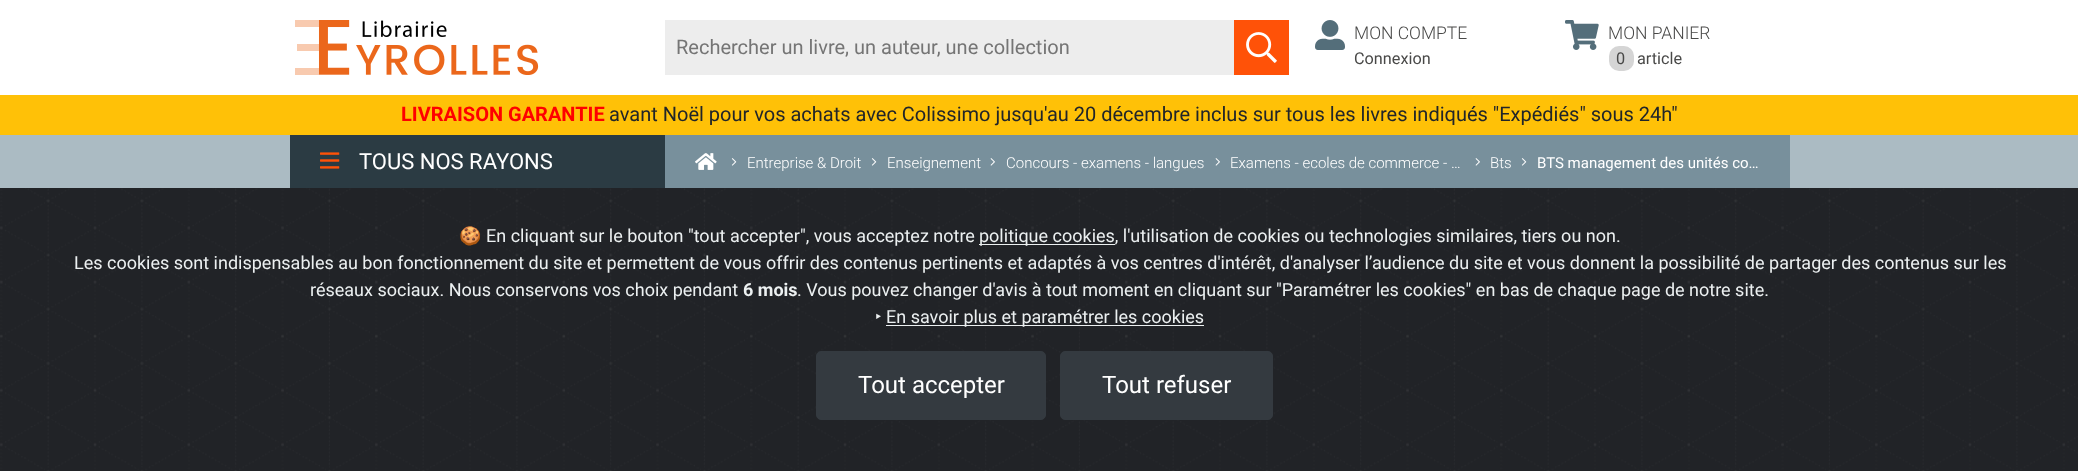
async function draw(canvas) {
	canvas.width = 2078;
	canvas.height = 471;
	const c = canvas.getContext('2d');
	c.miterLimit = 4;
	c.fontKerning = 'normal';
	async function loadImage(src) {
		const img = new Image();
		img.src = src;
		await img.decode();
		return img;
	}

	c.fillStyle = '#fff';
	c.fillRect(0, 0, 2078, 471);
	c.drawImage(await loadImage('img1.png'), 295, 20, 244, 55);
	c.fillStyle = '#ededed';
	c.fillRect(665, 20, 569, 55);
	c.font = '20px Roboto';
	c.fillStyle = '#757575';
	c.fillText('Rechercher un livre, un auteur, une collection', 676, 54);
	c.drawImage(await loadImage('img2.png'), 1234, 20, 55, 55);
	c.drawImage(await loadImage('img3.png'), 1315, 20, 30, 30);
	c.font = '300 17.5px Roboto';
	c.fillStyle = '#494948';
	c.fillText('MON COMPTE', 1354, 39);
	c.font = '16.25px Roboto';
	c.fillText('Connexion', 1354, 64);
	c.drawImage(await loadImage('img4.png'), 1565, 20, 34, 30);
	c.font = '300 17.5px Roboto';
	c.fillText('MON PANIER', 1608, 39);
	c.fillStyle = '#d5d5d5';
	c.beginPath();
	c.roundRect(1609, 46, 25, 25, 10);
	c.fill();
	c.font = '16.25px Roboto';
	c.fillStyle = '#494948';
	c.fillText('0', 1616, 64);
	c.fillText('article', 1637, 64);
	c.fillStyle = '#ffc107';
	c.fillRect(0, 95, 2078, 40);
	c.font = 'bold 20px Roboto';
	c.fillStyle = '#f00';
	c.fillText('LIVRAISON GARANTIE', 401, 121);
	c.font = '20px Roboto';
	c.fillStyle = '#212529';
	c.fillText('avant Noël pour vos achats avec Colissimo jusqu\'au 20 décembre inclus sur tous les livres indiqués "Expédiés" sous 24h"', 609, 121);
	for (const [x, y, w, h, color] of [
		[0, 135, 2078, 53, '#abbbc3'],
		[665, 135, 1125, 53, '#78909c'],
		[290, 135, 375, 53, '#2b3b43'],
	]) {
		c.fillStyle = color;
		c.fillRect(x, y, w, h);
	}
	c.drawImage(await loadImage('img5.png'), 320, 152, 20, 17);
	c.font = '22px Roboto';
	c.fillStyle = '#fff';
	c.fillText('TOUS NOS RAYONS', 359, 169);
	c.drawImage(await loadImage('img6.png'), 695, 153, 22, 17);
	c.drawImage(await loadImage('img7.png'), 731, 158, 6, 8);
	c.font = '300 15px Roboto';
	c.fillText('Entreprise & Droit', 747, 168);
	c.drawImage(await loadImage('img7.png'), 871, 158, 6, 8);
	c.fillText('Enseignement', 887, 168);
	c.drawImage(await loadImage('img8.png'), 990, 158, 5, 8);
	c.fillText('Concours - examens - langues', 1006, 168);
	c.drawImage(await loadImage('img8.png'), 1215, 158, 5, 8);
	c.fillText('Examens - ecoles de commerce - …', 1230, 168);
	c.drawImage(await loadImage('img8.png'), 1475, 158, 5, 8);
	c.fillText('Bts', 1490, 168);
	c.drawImage(await loadImage('img7.png'), 1521, 158, 6, 8);
	c.font = '15px Roboto';
	c.fillText('BTS management des unités co…', 1537, 168);
	c.drawImage(await loadImage('img9.png'), 0, 188, 2078, 283);
	c.font = '18px Noto Color Emoji';
	c.fillStyle = '#ecf0f1';
	c.fillText('🍪', 459, 242);
	c.font = '18px Roboto';
	c.fillText('En cliquant sur le bouton "tout accepter", vous acceptez notre', 486, 242);
	c.fillRect(979, 244, 136, 1);
	for (const [text, x, y] of [
		['politique cookies, l\'utilisation de cookies ou technologies similaires, tiers ou non.', 979, 242],
		['Les cookies sont indispensables au bon fonctionnement du site et permettent de vous offrir des contenus pertinents et adaptés à vos centres d\'intérêt, d\'analyser l’audience du site et vous donnent la possibilité de partager des contenus sur les', 74, 269],
		['réseaux sociaux. Nous conservons vos choix pendant', 310, 296],
	]) {
		c.fillText(text, x, y);
	}
	c.font = 'bold 18px Roboto';
	c.fillText('6 mois', 743, 296);
	c.font = '18px Roboto';
	c.fillText('. Vous pouvez changer d\'avis à tout moment en cliquant sur "Paramétrer les cookies" en bas de chaque page de notre site.', 797, 296);
	c.font = '18px Noto Sans';
	c.fillText('‣', 875, 323);
	c.fillRect(886, 325, 318, 1);
	c.font = '18px Roboto';
	c.fillText('En savoir plus et paramétrer les cookies', 886, 323);
	c.fillStyle = '#343a40';
	c.beginPath();
	c.roundRect(816.5, 351.5, 229, 68, 4.5);
	c.fill();
	c.strokeStyle = '#343a40';
	c.stroke();
	c.font = '24px Roboto';
	c.fillStyle = '#fff';
	c.fillText('Tout accepter', 858, 393);
	c.fillStyle = '#343a40';
	c.beginPath();
	c.roundRect(1060.5, 351.5, 212, 68, 4.5);
	c.fill();
	c.stroke();
	c.fillStyle = '#fff';
	c.fillText('Tout refuser', 1102, 393);
}

draw(document.querySelector('canvas'));
